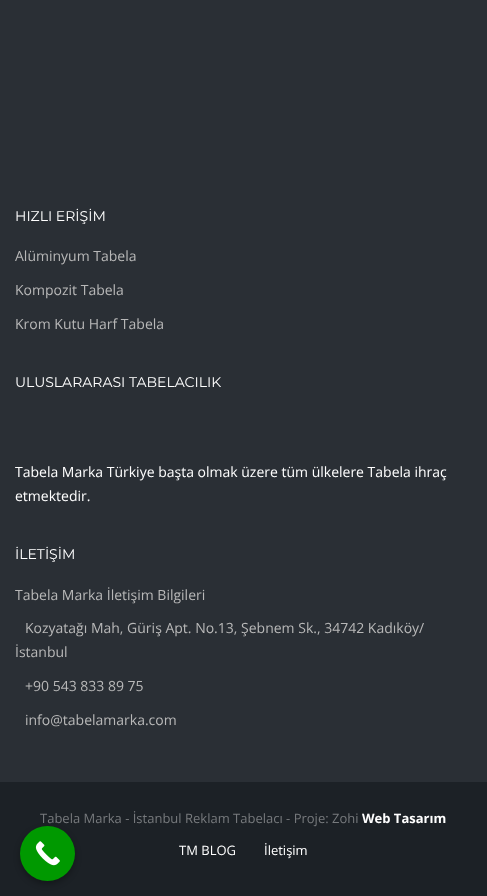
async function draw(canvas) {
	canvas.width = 487;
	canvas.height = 896;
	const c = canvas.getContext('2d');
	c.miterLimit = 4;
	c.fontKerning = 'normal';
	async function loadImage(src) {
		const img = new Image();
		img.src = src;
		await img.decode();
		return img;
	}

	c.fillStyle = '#2a2f35';
	c.fillRect(0, 0, 487, 896);
	c.font = '14px Montserrat';
	c.fillStyle = '#fff';
	c.fillText('HIZLI ERİŞİM', 15, 221);
	c.font = '14px Open Sans';
	c.fillStyle = '#b8b8b8';
	for (const [text, x, y] of [
		['Alüminyum Tabela', 15, 261],
		['Kompozit Tabela', 15, 295],
		['Krom Kutu Harf Tabela', 15, 329],
	]) {
		c.fillText(text, x, y);
	}
	c.font = '14px Montserrat';
	c.fillStyle = '#fff';
	c.fillText('ULUSLARARASI TABELACILIK', 15, 387);
	c.font = '14px Open Sans';
	c.fillText('Tabela Marka Türkiye başta olmak üzere tüm ülkelere Tabela ihraç', 15, 477);
	c.fillText('etmektedir.', 15, 501);
	c.font = '14px Montserrat';
	c.fillText('İLETİŞİM', 15, 559);
	c.font = '14px Open Sans';
	c.fillStyle = '#b8b8b8';
	for (const [text, x, y] of [
		['Tabela Marka İletişim Bilgileri', 15, 600],
		['Kozyatağı Mah, Güriş Apt. No.13, Şebnem Sk., 34742 Kadıköy/', 25, 633],
		['İstanbul', 15, 657],
		['+90 543 833 89 75', 25, 691],
		['info@tabelamarka.com', 25, 725],
	]) {
		c.fillText(text, x, y);
	}
	c.fillStyle = '#1c2126';
	c.fillRect(0, 782, 487, 114);
	c.font = '13px Open Sans';
	c.fillStyle = '#777a7d';
	c.fillText('Tabela Marka - İstanbul Reklam Tabelacı - Proje: Zohi', 40, 823);
	c.font = 'bold 13px Open Sans';
	c.fillStyle = '#fff';
	c.fillText('Web Tasarım', 362, 823);
	c.font = '13px Open Sans';
	c.fillText('TM BLOG', 179, 855);
	c.fillText('İletişim', 264, 855);
	c.fillStyle = '#0000004d';
	c.filter = 'blur(3px)';
	c.beginPath();
	c.roundRect(20, 829, 55, 55, 27.5);
	c.fill();
	c.filter = 'none';
	c.fillStyle = '#090';
	c.beginPath();
	c.arc(47.5, 853.5, 27.5, 0, 2 * Math.PI);
	c.fill();
	c.drawImage(await loadImage('img1.png'), 35, 841, 25, 25);
}

draw(document.querySelector('canvas'));
